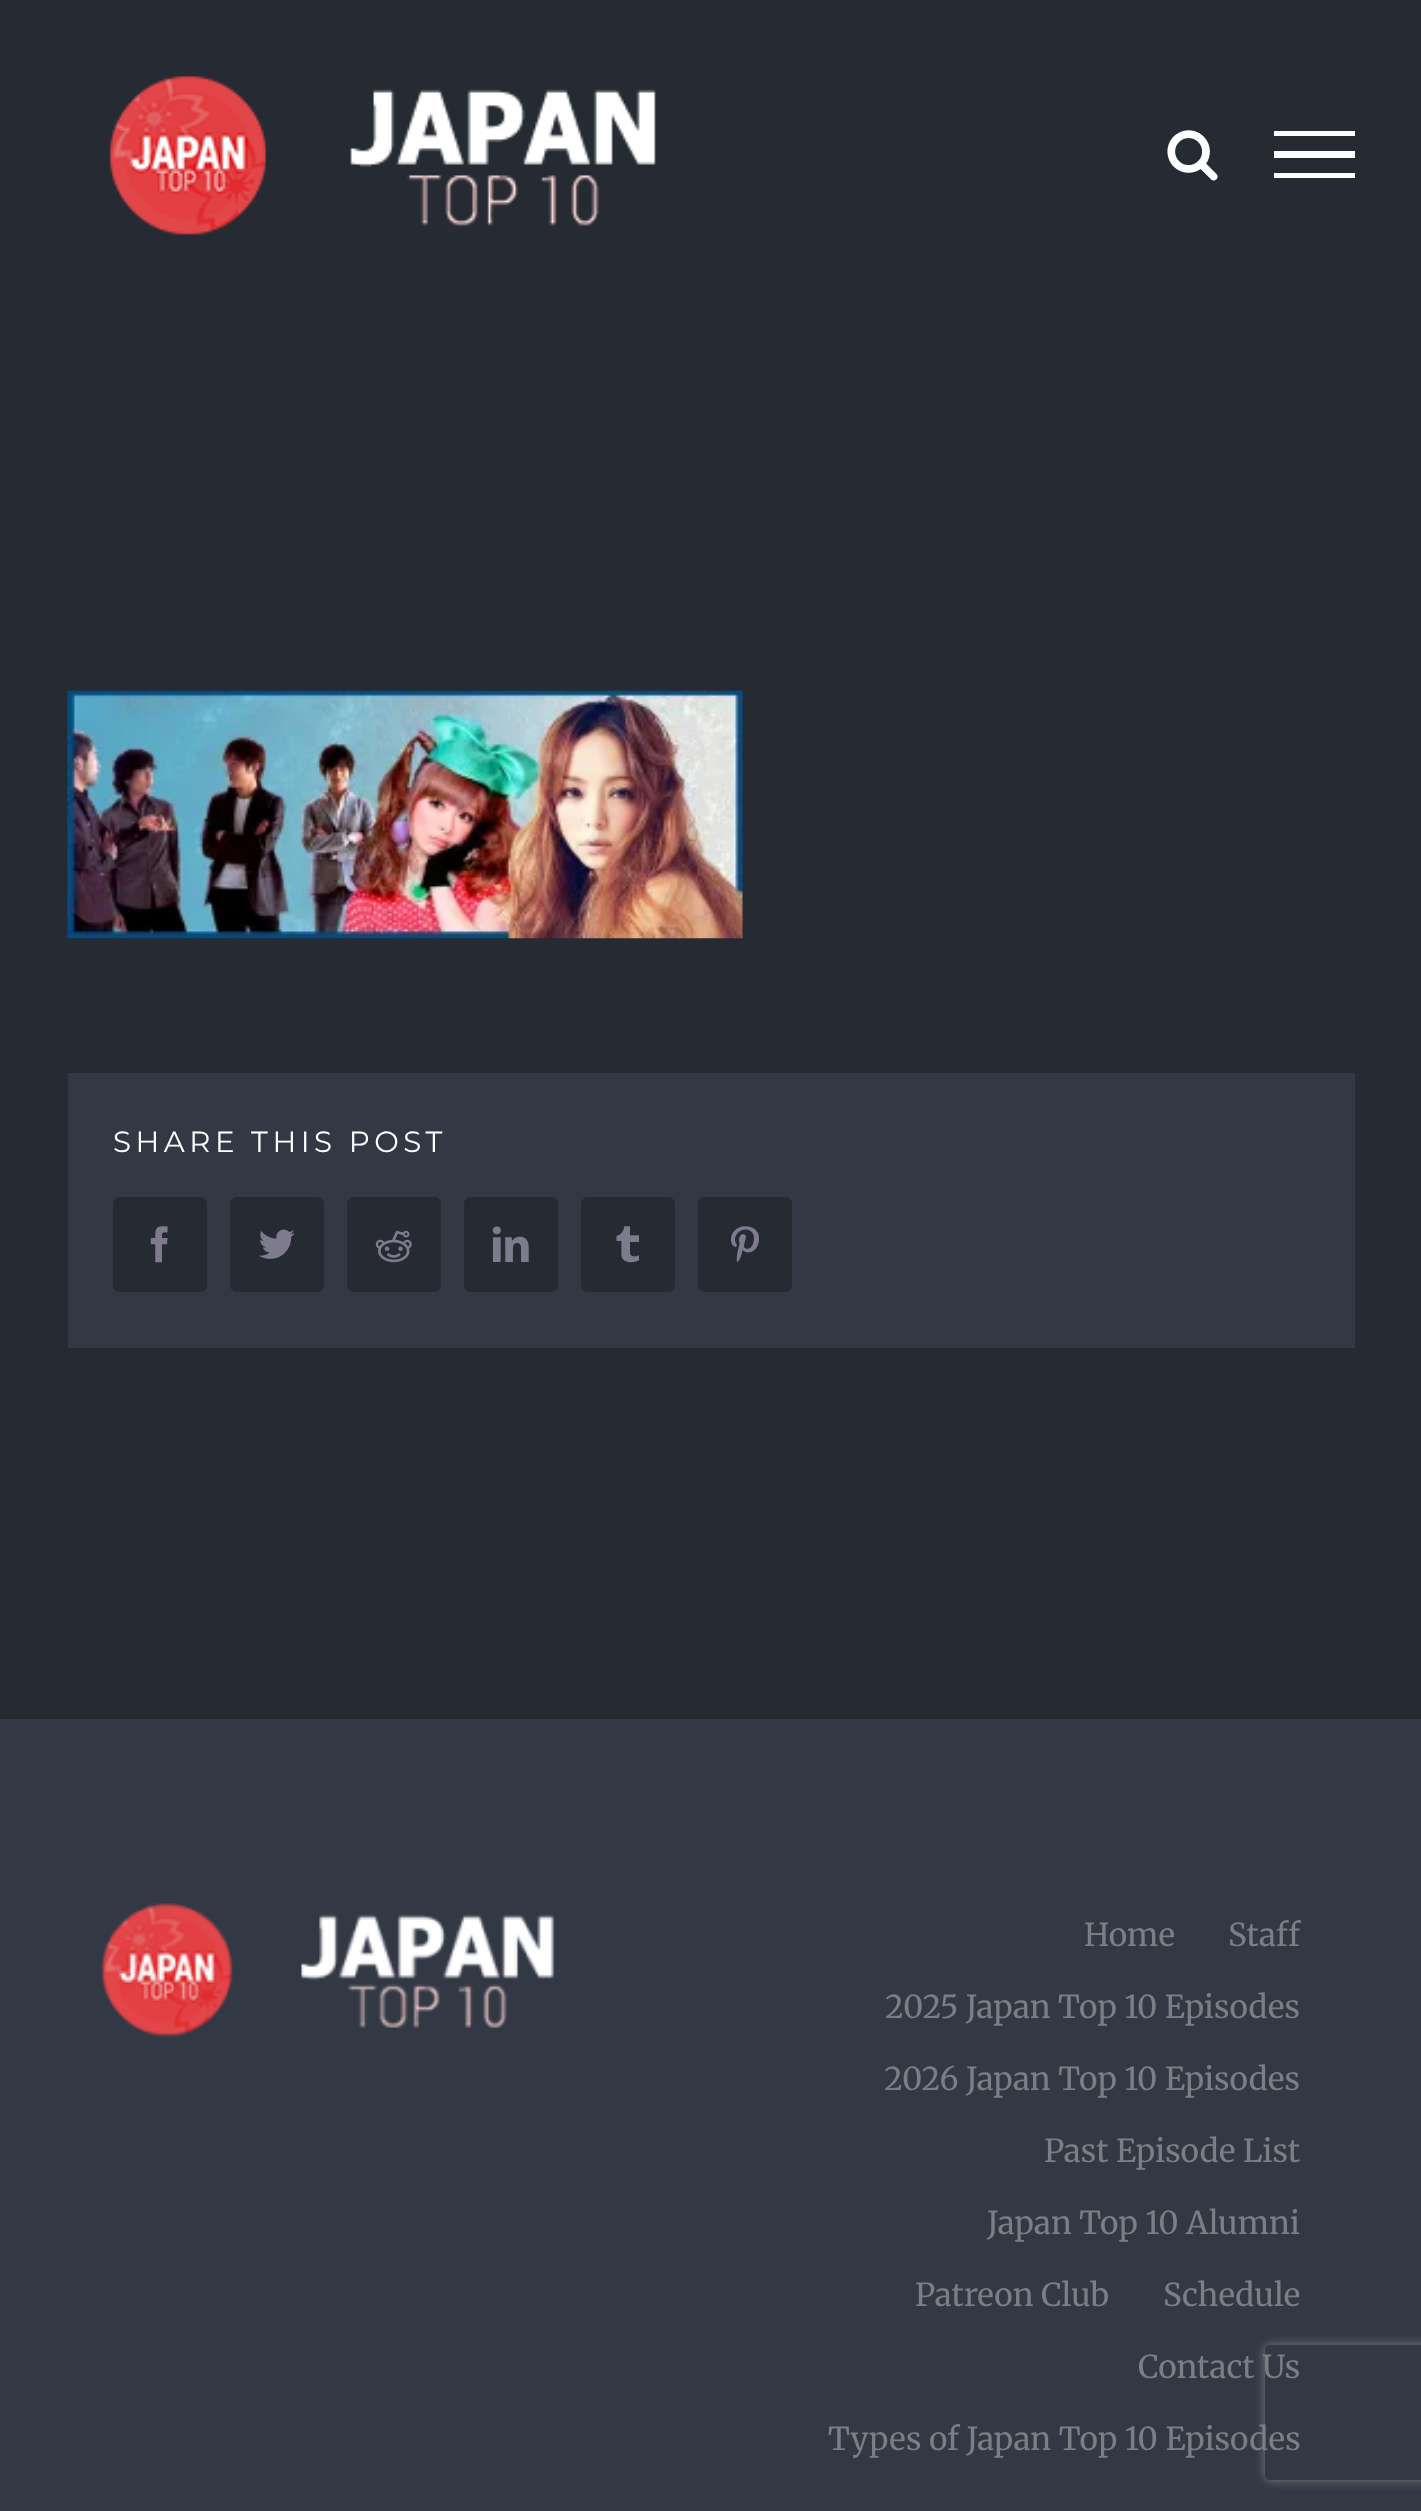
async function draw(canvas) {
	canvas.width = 1421;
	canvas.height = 2511;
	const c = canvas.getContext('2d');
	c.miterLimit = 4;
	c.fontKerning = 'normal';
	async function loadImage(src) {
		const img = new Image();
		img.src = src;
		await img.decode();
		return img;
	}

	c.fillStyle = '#252a33';
	c.fillRect(0, 0, 1421, 2511);
	c.drawImage(await loadImage('img1.png'), 109, 76, 547, 159);
	c.drawImage(await loadImage('img2.png'), 1167, 130, 51, 51);
	for (const [x, y, w, h, color] of [
		[1274, 131, 81, 5, '#fff'],
		[1274, 151, 81, 7, '#fff'],
		[1274, 173, 81, 5, '#fff'],
	]) {
		c.fillStyle = color;
		c.fillRect(x, y, w, h);
	}
	c.drawImage(await loadImage('img3.png'), 67, 690, 676, 249);
	c.fillStyle = '#323844';
	c.fillRect(68, 1073, 1287, 275);
	c.letterSpacing = '4.5px';
	c.font = '29.25px Montserrat';
	c.fillStyle = '#fff';
	c.fillText('SHARE THIS POST', 113, 1152);
	c.fillStyle = '#252a33';
	c.beginPath();
	c.roundRect(114, 1198, 92, 93, 6);
	c.fill();
	c.strokeStyle = '#252a33';
	c.lineWidth = 2;
	c.stroke();
	c.drawImage(await loadImage('img4.png'), 150, 1226, 18, 37);
	c.beginPath();
	c.roundRect(231, 1198, 92, 93, 6);
	c.fill();
	c.stroke();
	c.drawImage(await loadImage('img5.png'), 259, 1229, 36, 30);
	c.beginPath();
	c.roundRect(348, 1198, 92, 93, 6);
	c.fill();
	c.stroke();
	c.drawImage(await loadImage('img6.png'), 375, 1230, 37, 33);
	c.beginPath();
	c.roundRect(465, 1198, 92, 93, 6);
	c.fill();
	c.stroke();
	c.drawImage(await loadImage('img7.png'), 492, 1226, 37, 36);
	c.beginPath();
	c.roundRect(582, 1198, 92, 93, 6);
	c.fill();
	c.stroke();
	c.drawImage(await loadImage('img8.png'), 616, 1226, 23, 37);
	c.beginPath();
	c.roundRect(699, 1198, 92, 93, 6);
	c.fill();
	c.stroke();
	c.drawImage(await loadImage('img9.png'), 731, 1226, 28, 36);
	c.fillStyle = '#323844';
	c.fillRect(0, 1719, 1421, 792);
	c.drawImage(await loadImage('img10.png'), 100, 1903, 455, 134);
	c.letterSpacing = '0px';
	c.font = '31.5px Merriweather';
	c.fillStyle = '#7a7e85';
	for (const [text, x, y] of [
		['Home', 1084, 1946],
		['Staff', 1228, 1946],
		['2025 Japan Top 10 Episodes', 885, 2018],
		['2026 Japan Top 10 Episodes', 884, 2090],
		['Past Episode List', 1044, 2162],
		['Japan Top 10 Alumni', 987, 2234],
		['Patreon Club', 915, 2306],
		['Schedule', 1163, 2306],
		['Contact Us', 1138, 2378],
		['Types of Japan Top 10 Episodes', 828, 2450],
	]) {
		c.fillText(text, x, y);
	}
	c.save();
	c.beginPath();
	c.moveTo(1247, 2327);
	c.lineTo(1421, 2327);
	c.lineTo(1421, 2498);
	c.lineTo(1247, 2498);
	c.closePath();
	c.moveTo(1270, 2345);
	c.lineTo(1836, 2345);
	c.bezierCurveTo(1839, 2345, 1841, 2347, 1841, 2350);
	c.lineTo(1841, 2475);
	c.bezierCurveTo(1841, 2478, 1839, 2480, 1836, 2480);
	c.lineTo(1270, 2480);
	c.bezierCurveTo(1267, 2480, 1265, 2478, 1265, 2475);
	c.lineTo(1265, 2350);
	c.bezierCurveTo(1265, 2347, 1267, 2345, 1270, 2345);
	c.closePath();
	c.clip('evenodd');
	c.fillStyle = '#808080';
	c.filter = 'blur(5.5px)';
	c.beginPath();
	c.roundRect(1265, 2345, 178, 135, 5);
	c.fill();
	c.filter = 'none';
	c.restore();
}

draw(document.querySelector('canvas'));
